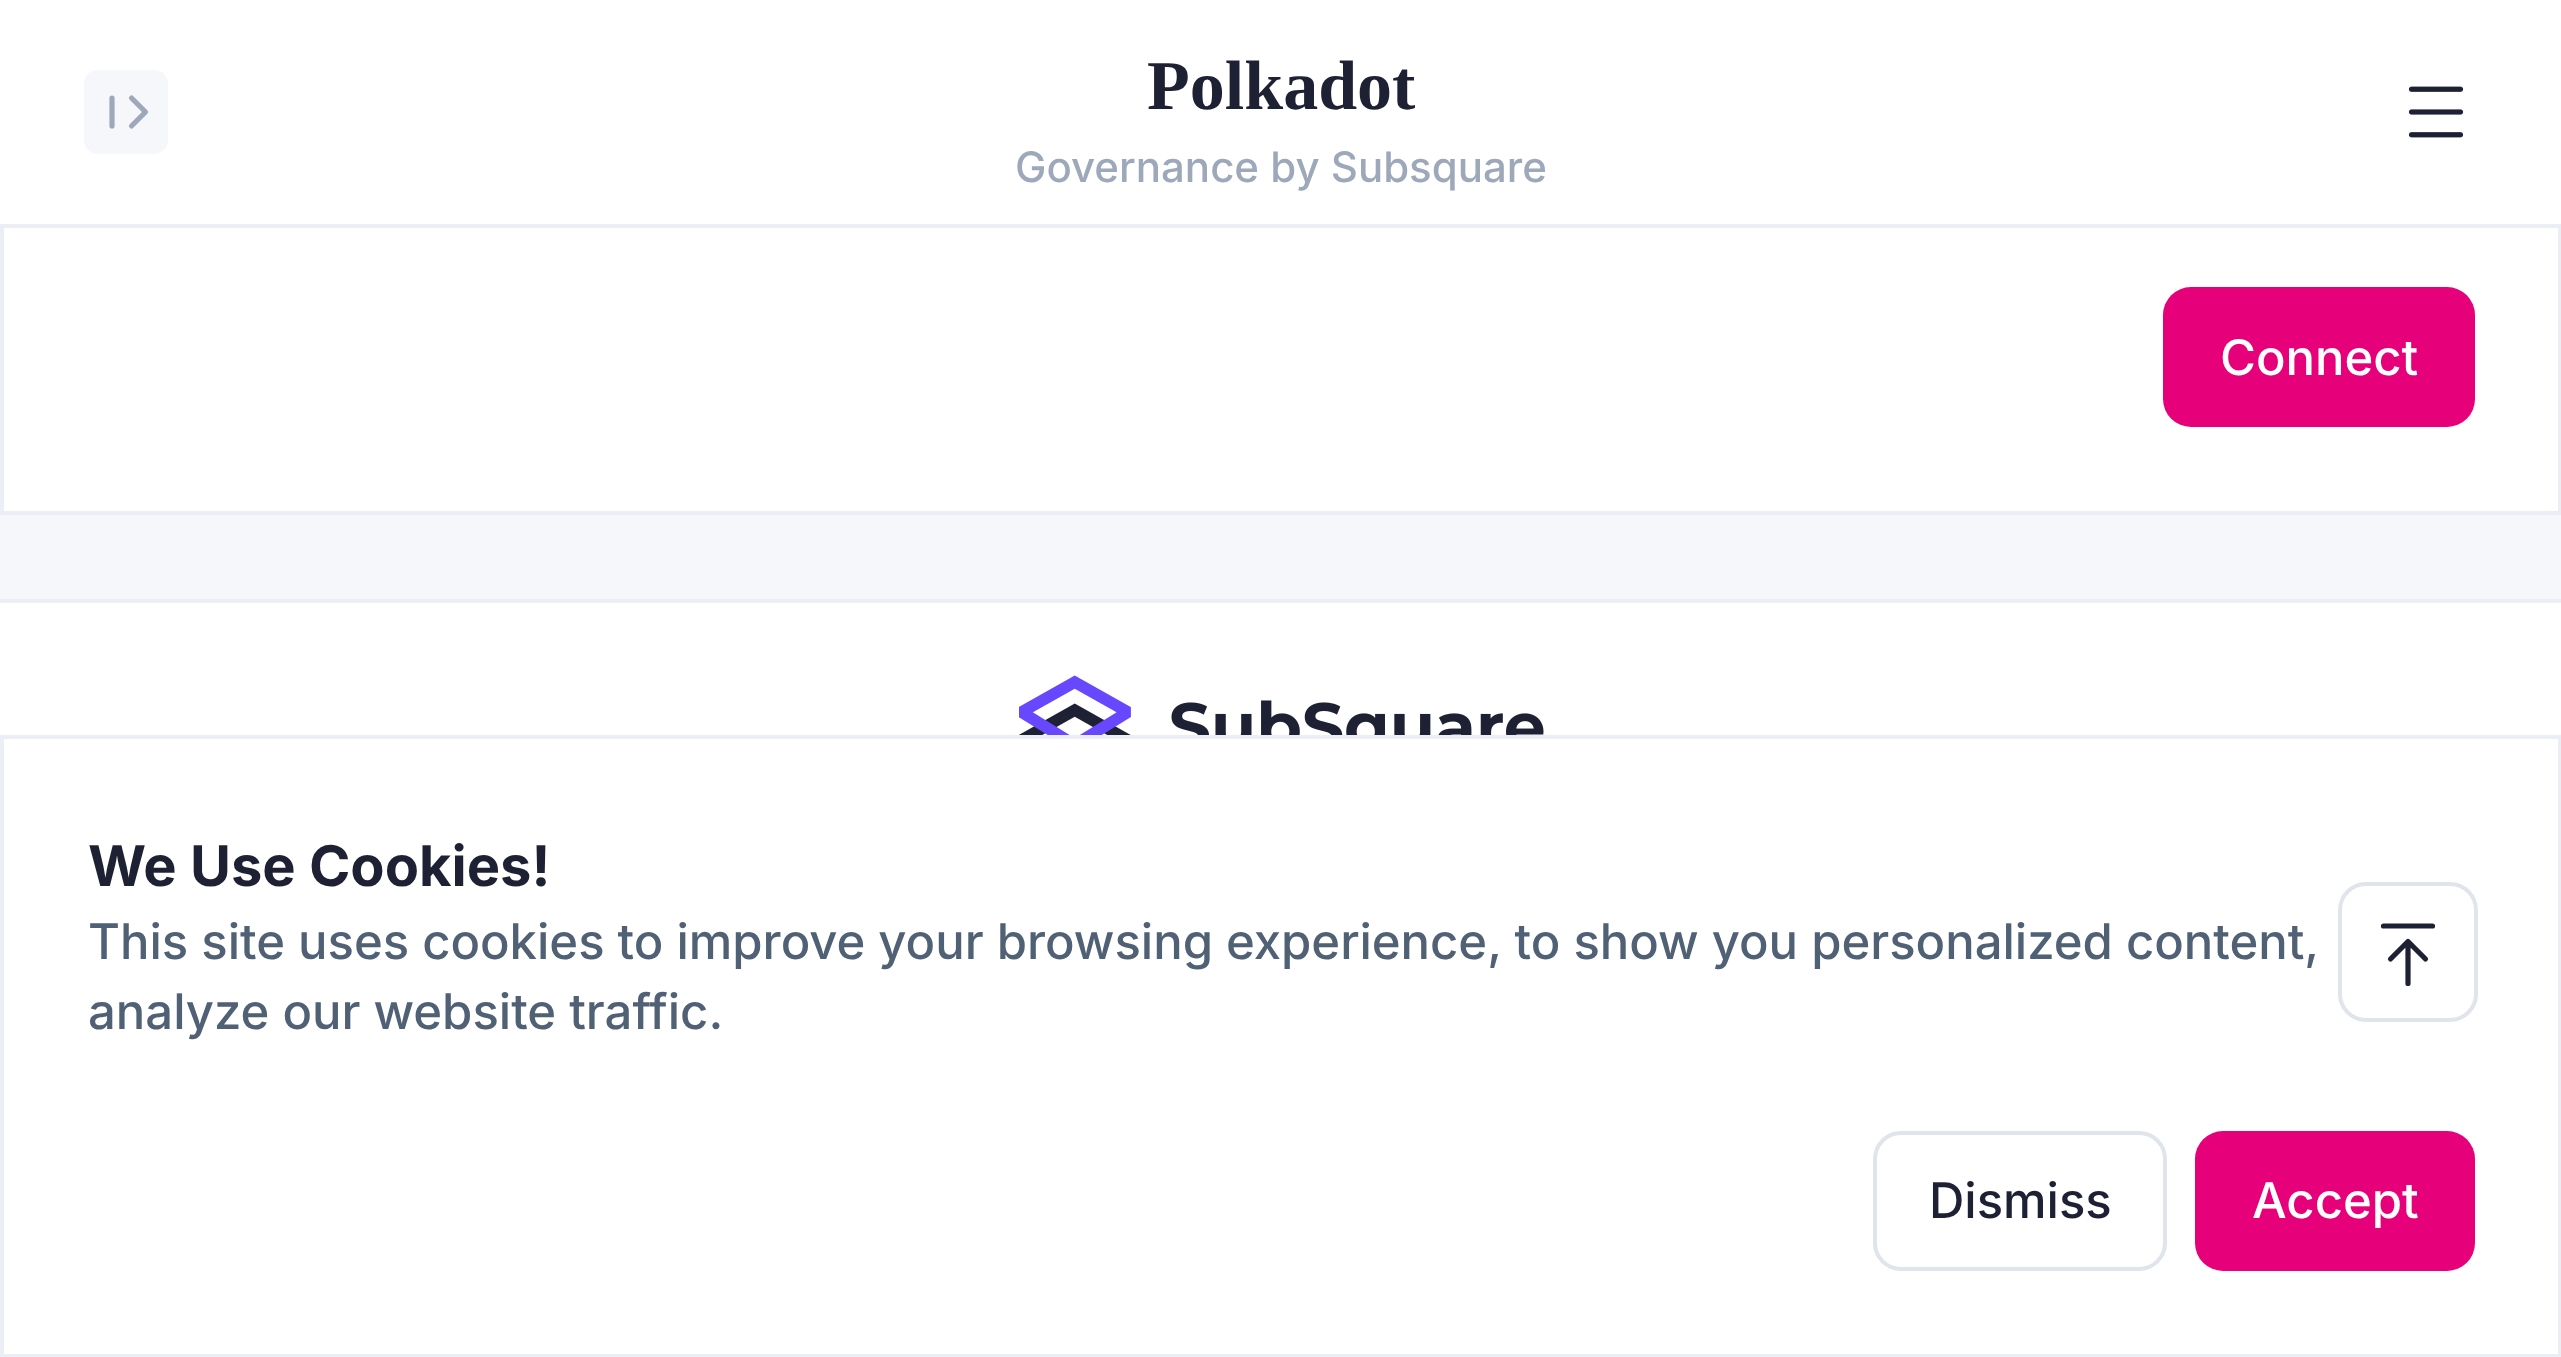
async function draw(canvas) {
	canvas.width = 2561;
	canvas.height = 1357;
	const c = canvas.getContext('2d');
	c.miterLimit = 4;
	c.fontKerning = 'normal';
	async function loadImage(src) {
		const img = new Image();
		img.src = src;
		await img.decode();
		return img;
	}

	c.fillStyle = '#f6f7fa';
	c.fillRect(0, 0, 2561, 1357);
	c.fillStyle = '#fff';
	c.fillRect(4, 228, 2554, 283);
	c.strokeStyle = '#ebeef4';
	c.lineWidth = 4;
	c.strokeRect(2, -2, 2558, 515);
	c.fillRect(0, 0, 2561, 224);
	c.fillStyle = '#ebeef4';
	c.fillRect(0, 224, 2561, 4);
	c.fillStyle = '#f6f7fa';
	c.beginPath();
	c.roundRect(84, 70, 84, 84, 14);
	c.fill();
	c.beginPath();
	c.moveTo(131.5, 126);
	c.lineTo(145.5, 112);
	c.lineTo(131.5, 98);
	c.moveTo(112, 126);
	c.lineTo(112, 98);
	c.strokeStyle = '#9da9bb';
	c.lineWidth = 5.2;
	c.lineCap = 'round';
	c.lineJoin = 'round';
	c.stroke();
	c.font = 'bold 70px Liberation Serif';
	c.fillStyle = '#1e2134';
	c.fillText('Polkadot', 1147, 109);
	c.font = '500 42px Inter';
	c.fillStyle = '#9da9bb';
	c.fillText('Governance by Subsquare', 1015, 182);
	c.drawImage(await loadImage('img1.png'), 2408, 86, 56, 52);
	c.fillStyle = '#e6007a';
	c.beginPath();
	c.roundRect(2163, 287, 312, 140, 28);
	c.fill();
	c.font = '500 49px Inter';
	c.fillStyle = '#fff';
	c.fillText('Connect', 2220, 375);
	c.beginPath();
	c.rect(2, 737, 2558, 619);
	c.fill();
	c.strokeStyle = '#ebeef4';
	c.lineWidth = 4;
	c.lineJoin = 'miter';
	c.stroke();
	c.beginPath();
	c.roundRect(2340, 884, 136, 136, 26);
	c.strokeStyle = '#e0e4eb';
	c.stroke();
	c.beginPath();
	c.moveTo(2408, 941.5);
	c.lineTo(2408, 983.5);
	c.moveTo(2390.5, 959);
	c.lineTo(2408, 941.5);
	c.lineTo(2425.5, 959);
	c.moveTo(2383.5, 926);
	c.lineTo(2432.5, 926);
	c.strokeStyle = '#1e2134';
	c.lineWidth = 5.2;
	c.lineJoin = 'round';
	c.stroke();
	c.fillRect(0, 603, 2561, 132);
	c.fillStyle = '#ebeef4';
	c.fillRect(0, 599, 2561, 4);
	c.drawImage(await loadImage('img2.png'), 1019, 675, 525, 60);
	c.font = 'bold 56px Inter';
	c.fillStyle = '#1e2134';
	c.fillText('We Use Cookies!', 88, 886);
	c.font = '500 49px Inter';
	c.fillStyle = '#506176';
	c.fillText('This site uses cookies to improve your browsing experience, to show you personalized content,', 88, 959);
	c.fillText('analyze our website traffic.', 88, 1029);
	c.beginPath();
	c.roundRect(1875, 1133, 290, 136, 26);
	c.strokeStyle = '#e0e4eb';
	c.lineWidth = 4;
	c.lineJoin = 'miter';
	c.stroke();
	c.fillStyle = '#1e2134';
	c.fillText('Dismiss', 1929, 1218);
	c.fillStyle = '#e6007a';
	c.beginPath();
	c.roundRect(2195, 1131, 280, 140, 28);
	c.fill();
	c.fillStyle = '#fff';
	c.fillText('Accept', 2252, 1218);
}

draw(document.querySelector('canvas'));
